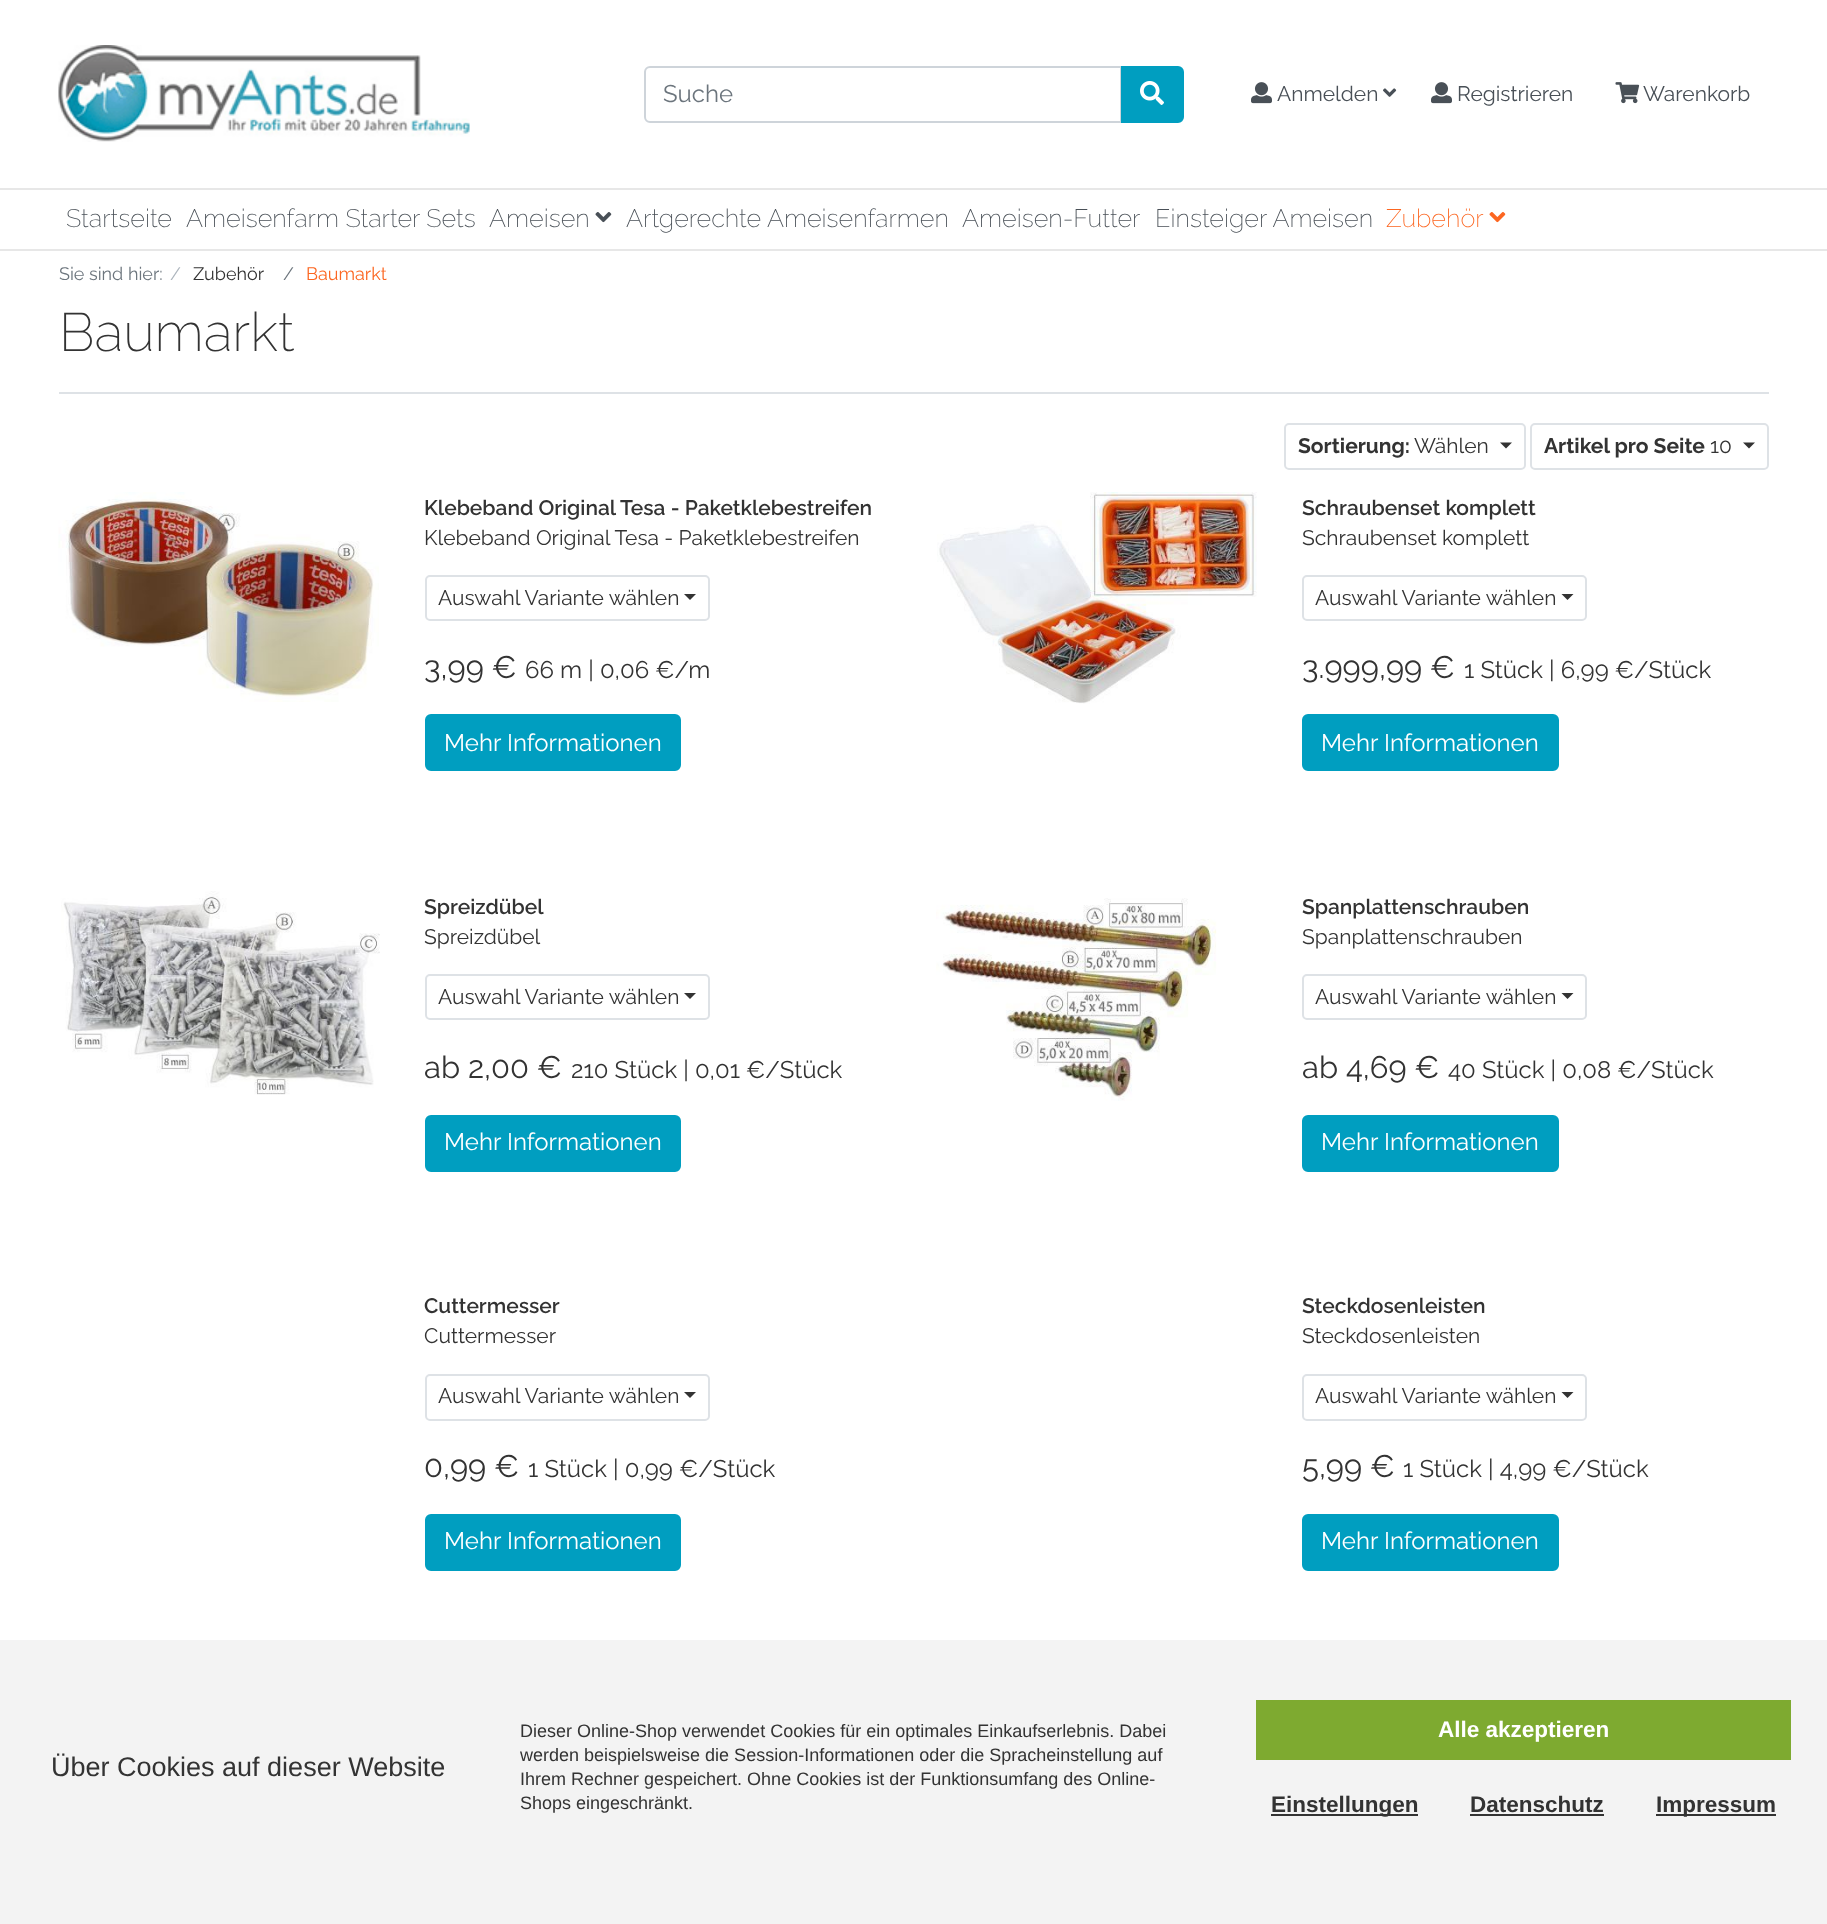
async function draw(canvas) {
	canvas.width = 1827;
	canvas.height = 1924;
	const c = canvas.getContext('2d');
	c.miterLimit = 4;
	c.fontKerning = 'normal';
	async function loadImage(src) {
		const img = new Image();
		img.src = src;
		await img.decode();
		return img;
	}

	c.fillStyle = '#fff';
	c.fillRect(0, 0, 1827, 1924);
	c.drawImage(await loadImage('img1.png'), 58, 45, 412, 97);
	c.beginPath();
	c.roundRect(645, 67, 476, 55, [5, 0, 0, 5]);
	c.strokeStyle = '#ced4da';
	c.lineWidth = 2;
	c.stroke();
	c.font = '100 24px Raleway';
	c.fillStyle = '#6c757d';
	c.fillText('Suche', 663, 102);
	c.fillStyle = '#009ec0';
	c.beginPath();
	c.roundRect(1122, 67, 61, 55, [0, 5, 5, 0]);
	c.fill();
	c.strokeStyle = '#009ec0';
	c.stroke();
	c.drawImage(await loadImage('img2.png'), 1140, 81, 24, 24);
	c.drawImage(await loadImage('img3.png'), 1251, 82, 21, 22);
	c.font = '100 21px Raleway';
	c.fillStyle = '#495057';
	c.fillText('Anmelden', 1277, 101);
	c.drawImage(await loadImage('img4.png'), 1383, 88, 14, 9);
	c.drawImage(await loadImage('img3.png'), 1431, 82, 21, 22);
	c.fillText('Registrieren', 1457, 101);
	c.drawImage(await loadImage('img5.png'), 1615, 82, 25, 22);
	c.fillText('Warenkorb', 1643, 101);
	c.fillStyle = '#e7e7e7';
	c.fillRect(0, 188, 1827, 2);
	c.fillRect(0, 249, 1827, 2);
	c.font = '100 25.25px "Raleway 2"';
	c.fillStyle = '#495057';
	for (const [text, x, y] of [
		['Startseite', 66, 227],
		['Ameisenfarm Starter Sets', 186, 227],
		['Ameisen', 489, 227],
	]) {
		c.fillText(text, x, y);
	}
	c.drawImage(await loadImage('img6.png'), 595, 212, 17, 11);
	for (const [text, x, y] of [
		['Artgerechte Ameisenfarmen', 626, 227],
		['Ameisen-Futter', 962, 227],
		['Einsteiger Ameisen', 1155, 227],
	]) {
		c.fillText(text, x, y);
	}
	c.fillStyle = '#fc6621';
	c.fillText('Zubehör', 1386, 227);
	c.drawImage(await loadImage('img7.png'), 1489, 212, 17, 11);
	c.font = '100 18px Raleway';
	c.fillStyle = '#6c757d';
	c.fillText('Sie sind hier:', 59, 280);
	c.fillStyle = '#adb5bd';
	c.fillText('/', 170, 280);
	c.fillStyle = '#333';
	c.fillText('Zubehör', 193, 280);
	c.fillStyle = '#6c757d';
	c.fillText('/', 283, 280);
	c.fillStyle = '#fc6621';
	c.fillText('Baumarkt', 306, 280);
	c.fillStyle = '#dee2e6';
	c.fillRect(59, 392, 1710, 2);
	c.font = '100 54px "Raleway 2"';
	c.fillStyle = '#333';
	c.fillText('Baumarkt', 59, 351);
	c.beginPath();
	c.roundRect(1285, 424, 240, 45, 4);
	c.strokeStyle = '#dee2e6';
	c.stroke();
	c.font = '100 21px "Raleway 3"';
	c.fillText('Sortierung:', 1298, 453);
	c.font = '100 21px Raleway';
	c.fillText('Wählen', 1414, 453);
	c.beginPath();
	c.moveTo(1500, 442.5);
	c.lineTo(1512, 442.5);
	c.lineTo(1506, 448.5);
	c.closePath();
	c.fill();
	c.beginPath();
	c.roundRect(1531, 424, 237, 45, 4);
	c.stroke();
	c.font = '100 21px "Raleway 3"';
	c.fillText('Artikel pro Seite', 1544, 453);
	c.font = '100 21px Raleway';
	c.fillText('10', 1710, 453);
	c.beginPath();
	c.moveTo(1743, 442.5);
	c.lineTo(1755, 442.5);
	c.lineTo(1749, 448.5);
	c.closePath();
	c.fill();
	c.drawImage(await loadImage('img8.png'), 58, 492, 321, 210);
	c.font = '100 21px "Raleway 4"';
	c.fillText('Klebeband Original Tesa - Paketklebestreifen', 424, 515);
	c.font = '100 21px Raleway';
	c.fillText('Klebeband Original Tesa - Paketklebestreifen', 424, 545);
	c.beginPath();
	c.roundRect(426, 576, 283, 44, 4);
	c.stroke();
	c.fillText('Auswahl Variante wählen', 438, 605);
	c.beginPath();
	c.moveTo(684, 594);
	c.lineTo(696, 594);
	c.lineTo(690, 600);
	c.closePath();
	c.fill();
	c.font = '100 31px Raleway';
	c.fillText('3,99 €', 424, 678);
	c.font = '100 24px Raleway';
	c.fillText('66 m | 0,06 €/m', 525, 678);
	c.fillStyle = '#009ec0';
	c.beginPath();
	c.roundRect(426, 715, 254, 55, 5);
	c.fill();
	c.strokeStyle = '#009ec0';
	c.stroke();
	c.fillStyle = '#fff';
	c.fillText('Mehr Informationen', 444, 751);
	c.drawImage(await loadImage('img9.png'), 937, 492, 320, 212);
	c.font = '100 21px "Raleway 4"';
	c.fillStyle = '#333';
	c.fillText('Schraubenset komplett', 1302, 515);
	c.font = '100 21px Raleway';
	c.fillText('Schraubenset komplett', 1302, 545);
	c.beginPath();
	c.roundRect(1303, 576, 283, 44, 4);
	c.strokeStyle = '#dee2e6';
	c.stroke();
	c.fillText('Auswahl Variante wählen', 1315, 605);
	c.beginPath();
	c.moveTo(1561.5, 594);
	c.lineTo(1573.5, 594);
	c.lineTo(1567.5, 600);
	c.closePath();
	c.fill();
	c.font = '100 31px Raleway';
	c.fillText('3.999,99 €', 1302, 678);
	c.font = '100 24px Raleway';
	c.fillText('1 Stück | 6,99 €/Stück', 1464, 678);
	c.fillStyle = '#009ec0';
	c.beginPath();
	c.roundRect(1303, 715, 255, 55, 5);
	c.fill();
	c.strokeStyle = '#009ec0';
	c.stroke();
	c.fillStyle = '#fff';
	c.fillText('Mehr Informationen', 1321, 751);
	c.drawImage(await loadImage('img10.png'), 61, 891, 319, 204);
	c.font = '100 21px "Raleway 4"';
	c.fillStyle = '#333';
	c.fillText('Spreizdübel', 424, 914);
	c.font = '100 21px Raleway';
	c.fillText('Spreizdübel', 424, 944);
	c.beginPath();
	c.roundRect(426, 975, 283, 44, 4);
	c.strokeStyle = '#dee2e6';
	c.stroke();
	c.fillText('Auswahl Variante wählen', 438, 1004);
	c.beginPath();
	c.moveTo(684, 993);
	c.lineTo(696, 993);
	c.lineTo(690, 999);
	c.closePath();
	c.fill();
	c.font = '100 31px Raleway';
	c.fillText('ab 2,00 €', 424, 1078);
	c.font = '100 24px Raleway';
	c.fillText('210 Stück | 0,01 €/Stück', 571, 1078);
	c.fillStyle = '#009ec0';
	c.beginPath();
	c.roundRect(426, 1116, 254, 55, 5);
	c.fill();
	c.strokeStyle = '#009ec0';
	c.stroke();
	c.fillStyle = '#fff';
	c.fillText('Mehr Informationen', 444, 1150);
	c.drawImage(await loadImage('img11.png'), 936, 898, 281, 203);
	c.font = '100 21px "Raleway 4"';
	c.fillStyle = '#333';
	c.fillText('Spanplattenschrauben', 1302, 914);
	c.font = '100 21px Raleway';
	c.fillText('Spanplattenschrauben', 1302, 944);
	c.beginPath();
	c.roundRect(1303, 975, 283, 44, 4);
	c.strokeStyle = '#dee2e6';
	c.stroke();
	c.fillText('Auswahl Variante wählen', 1315, 1004);
	c.beginPath();
	c.moveTo(1561.5, 993);
	c.lineTo(1573.5, 993);
	c.lineTo(1567.5, 999);
	c.closePath();
	c.fill();
	c.font = '100 31px Raleway';
	c.fillText('ab 4,69 €', 1302, 1078);
	c.font = '100 24px Raleway';
	c.fillText('40 Stück | 0,08 €/Stück', 1448, 1078);
	c.fillStyle = '#009ec0';
	c.beginPath();
	c.roundRect(1303, 1116, 255, 55, 5);
	c.fill();
	c.strokeStyle = '#009ec0';
	c.stroke();
	c.fillStyle = '#fff';
	c.fillText('Mehr Informationen', 1321, 1150);
	c.font = '100 21px "Raleway 4"';
	c.fillStyle = '#333';
	c.fillText('Cuttermesser', 424, 1313);
	c.font = '100 21px Raleway';
	c.fillText('Cuttermesser', 424, 1343);
	c.beginPath();
	c.roundRect(426, 1375, 283, 45, 4);
	c.strokeStyle = '#dee2e6';
	c.stroke();
	c.fillText('Auswahl Variante wählen', 438, 1403);
	c.beginPath();
	c.moveTo(684, 1392);
	c.lineTo(696, 1392);
	c.lineTo(690, 1398);
	c.closePath();
	c.fill();
	c.font = '100 31px Raleway';
	c.fillText('0,99 €', 424, 1477);
	c.font = '100 24px Raleway';
	c.fillText('1 Stück | 0,99 €/Stück', 528, 1477);
	c.fillStyle = '#009ec0';
	c.beginPath();
	c.roundRect(426, 1515, 254, 55, 5);
	c.fill();
	c.strokeStyle = '#009ec0';
	c.stroke();
	c.fillStyle = '#fff';
	c.fillText('Mehr Informationen', 444, 1549);
	c.font = '100 21px "Raleway 4"';
	c.fillStyle = '#333';
	c.fillText('Steckdosenleisten', 1302, 1313);
	c.font = '100 21px Raleway';
	c.fillText('Steckdosenleisten', 1302, 1343);
	c.beginPath();
	c.roundRect(1303, 1375, 283, 45, 4);
	c.strokeStyle = '#dee2e6';
	c.stroke();
	c.fillText('Auswahl Variante wählen', 1315, 1403);
	c.beginPath();
	c.moveTo(1561.5, 1392);
	c.lineTo(1573.5, 1392);
	c.lineTo(1567.5, 1398);
	c.closePath();
	c.fill();
	c.font = '100 31px Raleway';
	c.fillText('5,99 €', 1302, 1477);
	c.font = '100 24px Raleway';
	c.fillText('1 Stück | 4,99 €/Stück', 1403, 1477);
	c.fillStyle = '#009ec0';
	c.beginPath();
	c.roundRect(1303, 1515, 255, 55, 5);
	c.fill();
	c.strokeStyle = '#009ec0';
	c.stroke();
	c.fillStyle = '#fff';
	c.fillText('Mehr Informationen', 1321, 1549);
	c.fillStyle = '#f3f3f3';
	c.fillRect(0, 1640, 1827, 284);
	c.font = '27px Liberation Sans';
	c.fillStyle = '#333';
	c.fillText('Über Cookies auf dieser Website', 51, 1776);
	c.font = '18px Liberation Sans';
	for (const [text, x, y] of [
		['Dieser Online-Shop verwendet Cookies für ein optimales Einkaufserlebnis. Dabei', 520, 1737],
		['werden beispielsweise die Session-Informationen oder die Spracheinstellung auf', 520, 1761],
		['Ihrem Rechner gespeichert. Ohne Cookies ist der Funktionsumfang des Online-', 520, 1785],
		['Shops eingeschränkt.', 520, 1809],
	]) {
		c.fillText(text, x, y);
	}
	c.fillStyle = '#7eaa30';
	c.fillRect(1256, 1700, 535, 60);
	c.font = 'bold 22.5px Liberation Sans';
	c.fillStyle = '#fff';
	c.fillText('Alle akzeptieren', 1438, 1737);
	c.fillStyle = '#333';
	c.fillRect(1271, 1814, 147, 2);
	c.fillText('Einstellungen', 1271, 1812);
	c.fillText('Datenschutz', 1470, 1812);
	c.fillRect(1470, 1814, 134, 2);
	c.fillRect(1656, 1814, 120, 2);
	c.fillText('Impressum', 1656, 1812);
}

draw(document.querySelector('canvas'));
